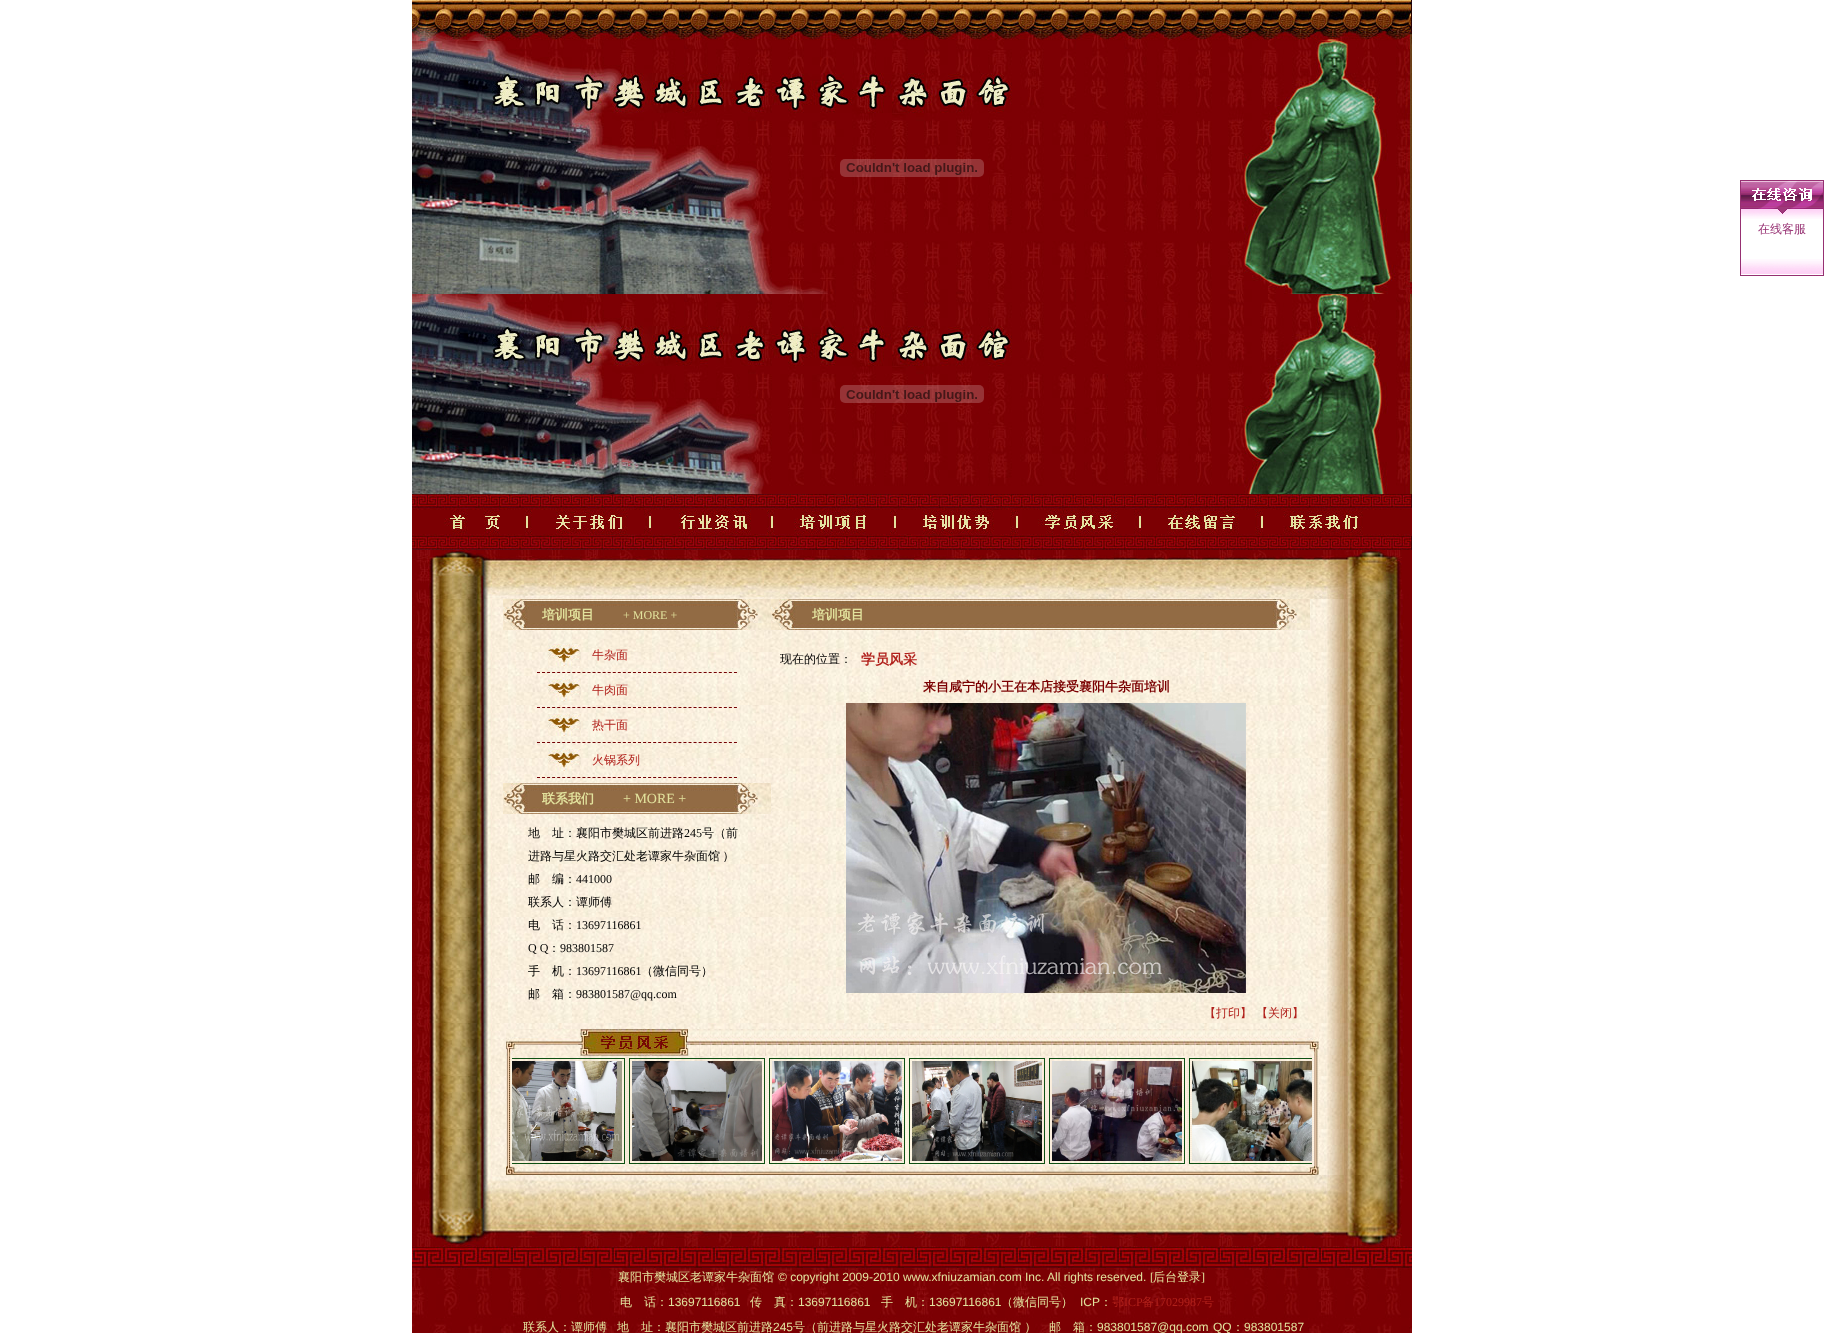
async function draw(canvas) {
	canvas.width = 1824;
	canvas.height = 1333;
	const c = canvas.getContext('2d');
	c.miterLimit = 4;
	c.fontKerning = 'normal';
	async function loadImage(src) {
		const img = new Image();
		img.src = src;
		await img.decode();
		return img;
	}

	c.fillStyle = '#fff';
	c.fillRect(0, 0, 1824, 1333);
	c.drawImage(await loadImage('img1.png'), 412, 0, 1000, 41);
	c.drawImage(await loadImage('img2.png'), 412, 41, 1000, 453);
	c.drawImage(await loadImage('img3.png'), 840, 159, 144, 18);
	c.drawImage(await loadImage('img4.png'), 840, 385, 144, 18);
	c.drawImage(await loadImage('img5.png'), 1741, 259, 82, 17);
	c.fillStyle = '#963072';
	c.fillRect(1823, 180, 1, 96);
	c.fillRect(1740, 180, 1, 96);
	c.drawImage(await loadImage('img6.png'), 1741, 180, 82, 39);
	c.font = '500 12px WenQuanYi Zen Hei';
	c.fillText('在线客服', 1758, 233);
	c.drawImage(await loadImage('img7.png'), 412, 494, 120, 56);
	c.drawImage(await loadImage('img8.png'), 532, 494, 123, 56);
	c.drawImage(await loadImage('img9.png'), 655, 494, 123, 56);
	c.drawImage(await loadImage('img10.png'), 778, 494, 120, 56);
	c.drawImage(await loadImage('img11.png'), 898, 494, 124, 56);
	c.drawImage(await loadImage('img12.png'), 1022, 494, 129, 56);
	c.drawImage(await loadImage('img13.png'), 1151, 494, 116, 56);
	c.drawImage(await loadImage('img14.png'), 1267, 494, 145, 56);
	c.drawImage(await loadImage('img15.png'), 412, 550, 502, 49);
	c.drawImage(await loadImage('img16.png'), 914, 550, 498, 49);
	c.drawImage(await loadImage('img17.png'), 412, 599, 1000, 576);
	c.drawImage(await loadImage('img18.png'), 503, 599, 26, 31);
	c.drawImage(await loadImage('img19.png'), 529, 599, 205, 31);
	c.font = 'bold 13px WenQuanYi Zen Hei';
	c.fillStyle = '#e2e29d';
	c.fillText('培训项目', 542, 619);
	c.font = '12px Liberation Serif';
	c.fillText('+ MORE +', 623, 619);
	c.drawImage(await loadImage('img20.png'), 734, 599, 37, 31);
	c.beginPath();
	c.moveTo(537, 672.5);
	c.lineTo(737, 672.5);
	c.strokeStyle = '#730003';
	c.setLineDash([3, 2.05]);
	c.stroke();
	c.drawImage(await loadImage('img21.png'), 548, 644, 33, 22);
	c.font = '500 12px WenQuanYi Zen Hei';
	c.fillStyle = '#b1201b';
	c.fillText('牛杂面', 592, 659);
	c.beginPath();
	c.moveTo(537, 707.5);
	c.lineTo(737, 707.5);
	c.stroke();
	c.drawImage(await loadImage('img21.png'), 548, 679, 33, 22);
	c.fillText('牛肉面', 592, 694);
	c.beginPath();
	c.moveTo(537, 742.5);
	c.lineTo(737, 742.5);
	c.stroke();
	c.drawImage(await loadImage('img21.png'), 548, 714, 33, 22);
	c.fillText('热干面', 592, 729);
	c.beginPath();
	c.moveTo(537, 777.5);
	c.lineTo(737, 777.5);
	c.stroke();
	c.drawImage(await loadImage('img21.png'), 548, 749, 33, 22);
	c.fillText('火锅系列', 592, 764);
	c.drawImage(await loadImage('img18.png'), 503, 783, 26, 31);
	c.drawImage(await loadImage('img19.png'), 529, 783, 205, 31);
	c.font = 'bold 13px WenQuanYi Zen Hei';
	c.fillStyle = '#e2e29d';
	c.fillText('联系我们', 542, 803);
	c.font = '14px Liberation Serif';
	c.fillText('+ MORE +', 623, 803);
	c.drawImage(await loadImage('img20.png'), 734, 783, 37, 31);
	c.font = '500 12px WenQuanYi Zen Hei';
	c.fillStyle = '#000';
	c.fillText('地　址：襄阳市樊城区前进路', 528, 837);
	c.font = '12px Liberation Serif';
	c.fillText('245', 684, 837);
	c.font = '500 12px WenQuanYi Zen Hei';
	c.fillText('号（前', 702, 837);
	c.wordSpacing = '-1px';
	c.fillText('进路与星火路交汇处老谭家牛杂面馆 ）', 528, 860);
	c.wordSpacing = '0px';
	c.fillText('邮　编：', 528, 883);
	c.font = '12px Liberation Serif';
	c.fillText('441000', 576, 883);
	c.font = '500 12px WenQuanYi Zen Hei';
	c.fillText('联系人：谭师傅', 528, 906);
	c.fillText('电　话：', 528, 929);
	c.font = '12px Liberation Serif';
	c.fillText('13697116861', 576, 929);
	c.fillText('Q Q', 528, 952);
	c.font = '500 12px WenQuanYi Zen Hei';
	c.fillText('：', 548, 952);
	c.font = '12px Liberation Serif';
	c.fillText('983801587', 560, 952);
	c.font = '500 12px WenQuanYi Zen Hei';
	c.fillText('手　机：', 528, 975);
	c.font = '12px Liberation Serif';
	c.fillText('13697116861', 576, 975);
	c.font = '500 12px WenQuanYi Zen Hei';
	c.fillText('（微信同号）', 641, 975);
	c.fillText('邮　箱：', 528, 998);
	c.font = '12px Liberation Serif';
	c.fillText('983801587@qq.com', 576, 998);
	c.drawImage(await loadImage('img18.png'), 771, 599, 26, 31);
	c.drawImage(await loadImage('img22.png'), 797, 599, 476, 31);
	c.font = 'bold 13px WenQuanYi Zen Hei';
	c.fillStyle = '#e2e29d';
	c.fillText('培训项目', 812, 619);
	c.drawImage(await loadImage('img20.png'), 1273, 599, 37, 31);
	c.font = '500 12px WenQuanYi Zen Hei';
	c.fillStyle = '#000';
	c.fillText('现在的位置：', 780, 663);
	c.font = 'bold 14px WenQuanYi Zen Hei';
	c.fillStyle = '#b1201b';
	c.fillText('学员风采', 861, 664);
	c.font = 'bold 13px WenQuanYi Zen Hei';
	c.fillStyle = '#7b0002';
	c.fillText('来自咸宁的小王在本店接受襄阳牛杂面培训', 923, 691);
	c.drawImage(await loadImage('img23.png'), 846, 703, 400, 290);
	c.font = '500 12px WenQuanYi Zen Hei';
	c.fillStyle = '#b1201b';
	c.fillText('【打印】', 1204, 1017);
	c.fillText('【关闭】', 1256, 1017);
	c.drawImage(await loadImage('img24.png'), 506, 1029, 74, 27);
	c.drawImage(await loadImage('img25.png'), 580, 1029, 108, 27);
	c.drawImage(await loadImage('img26.png'), 688, 1029, 609, 27);
	c.drawImage(await loadImage('img27.png'), 1297, 1029, 22, 27);
	c.drawImage(await loadImage('img28.png'), 506, 1056, 813, 110);
	c.save();
	c.beginPath();
	c.rect(512, 1056, 800, 110);
	c.clip();
	c.strokeStyle = '#0e5012';
	c.setLineDash([]);
	c.strokeRect(489.5, 1058.5, 135, 105);
	c.restore();
	c.drawImage(await loadImage('img29.png'), 512, 1061, 110, 100);
	c.strokeStyle = '#0e5012';
	c.setLineDash([]);
	c.strokeRect(629.5, 1058.5, 135, 105);
	c.drawImage(await loadImage('img30.png'), 632, 1061, 130, 100);
	c.strokeRect(769.5, 1058.5, 135, 105);
	c.drawImage(await loadImage('img31.png'), 772, 1061, 130, 100);
	c.strokeRect(909.5, 1058.5, 135, 105);
	c.drawImage(await loadImage('img32.png'), 912, 1061, 130, 100);
	c.strokeRect(1049.5, 1058.5, 135, 105);
	c.drawImage(await loadImage('img33.png'), 1052, 1061, 130, 100);
	c.save();
	c.beginPath();
	c.rect(512, 1056, 800, 110);
	c.clip();
	c.strokeRect(1189.5, 1058.5, 135, 105);
	c.restore();
	c.drawImage(await loadImage('img34.png'), 1192, 1061, 120, 100);
	c.drawImage(await loadImage('img35.png'), 506, 1166, 813, 9);
	c.drawImage(await loadImage('img36.png'), 412, 1175, 502, 71);
	c.drawImage(await loadImage('img37.png'), 914, 1175, 498, 71);
	c.drawImage(await loadImage('img38.png'), 412, 1246, 1000, 87);
	c.fillStyle = '#e2e29d';
	c.fillText('襄阳市樊城区老谭家牛杂面馆', 618, 1281);
	c.font = '12px Liberation Sans';
	c.fillText('© copyright 2009-2010 www.xfniuzamian.com Inc. All rights reserved.', 778, 1281);
	c.font = '12px Liberation Serif';
	c.fillText('[', 1150, 1281);
	c.font = '500 12px WenQuanYi Zen Hei';
	c.fillText('后台登录', 1153, 1281);
	c.font = '12px Liberation Serif';
	c.fillText(']', 1201, 1281);
	c.font = '500 12px WenQuanYi Zen Hei';
	c.fillText('电　话：', 620, 1306);
	c.font = '12px Liberation Sans';
	c.fillText('13697116861', 668, 1306);
	c.font = '500 12px WenQuanYi Zen Hei';
	c.fillText('传　真：', 750, 1306);
	c.font = '12px Liberation Sans';
	c.fillText('13697116861', 798, 1306);
	c.font = '500 12px WenQuanYi Zen Hei';
	c.fillText('手　机：', 881, 1306);
	c.font = '12px Liberation Sans';
	c.fillText('13697116861', 929, 1306);
	c.font = '500 12px WenQuanYi Zen Hei';
	c.fillText('（微信同号）', 1001, 1306);
	c.font = '12px Liberation Sans';
	c.fillText('ICP', 1080, 1306);
	c.font = '500 12px WenQuanYi Zen Hei';
	c.fillText('：', 1100, 1306);
	c.fillStyle = '#b1201b';
	c.fillText('鄂', 1112, 1306);
	c.font = '12px Liberation Serif';
	c.fillText('ICP', 1124, 1306);
	c.font = '500 12px WenQuanYi Zen Hei';
	c.fillText('备', 1142, 1306);
	c.font = '12px Liberation Serif';
	c.fillText('17029987', 1154, 1306);
	c.font = '500 12px WenQuanYi Zen Hei';
	c.fillText('号', 1202, 1306);
	c.fillStyle = '#e2e29d';
	c.fillText('联系人：谭师傅', 523, 1331);
	c.fillText('地　址：襄阳市樊城区前进路', 617, 1331);
	c.font = '12px Liberation Sans';
	c.fillText('245', 773, 1331);
	c.font = '500 12px WenQuanYi Zen Hei';
	c.fillText('号（前进路与星火路交汇处老谭家牛杂面馆 ）', 793, 1331);
	c.fillText('邮　箱：', 1049, 1331);
	c.font = '12px Liberation Sans';
	c.fillText('983801587@qq.com', 1097, 1331);
	c.fillText('QQ', 1213, 1331);
	c.font = '500 12px WenQuanYi Zen Hei';
	c.fillText('：', 1232, 1331);
	c.font = '12px Liberation Sans';
	c.fillText('983801587', 1244, 1331);
}

draw(document.querySelector('canvas'));
